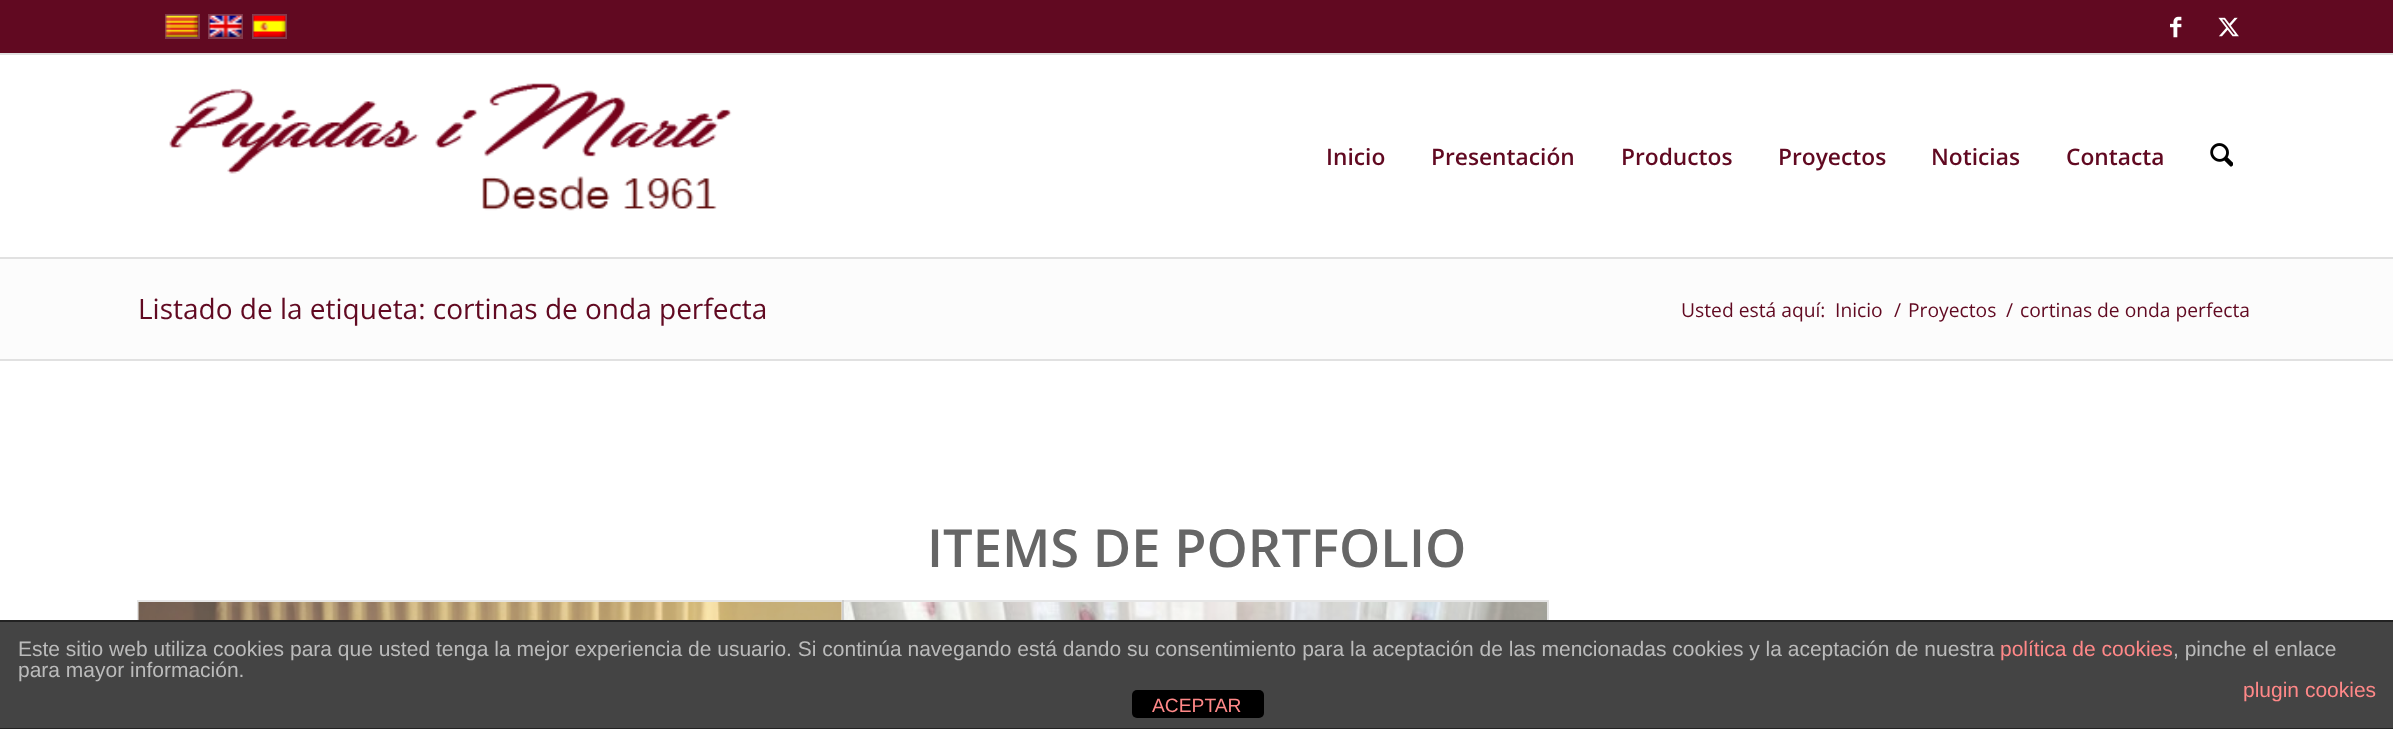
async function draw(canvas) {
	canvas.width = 2393;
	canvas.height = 729;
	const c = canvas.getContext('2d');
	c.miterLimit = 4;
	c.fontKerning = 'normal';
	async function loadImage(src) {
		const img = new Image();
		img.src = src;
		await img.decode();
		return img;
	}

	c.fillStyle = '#fff';
	c.fillRect(0, 0, 2393, 729);
	c.fillStyle = '#610921';
	c.fillRect(0, 0, 2393, 53);
	c.fillStyle = '#e1e1e1';
	c.fillRect(0, 53, 2393, 2);
	c.strokeStyle = '#813a4d';
	c.lineWidth = 2;
	c.strokeRect(166, 15, 33, 23);
	c.drawImage(await loadImage('img1.png'), 165, 15, 34, 22);
	c.strokeRect(209, 15, 33, 23);
	c.drawImage(await loadImage('img2.png'), 209, 15, 33, 22);
	c.strokeRect(253, 15, 33, 23);
	c.drawImage(await loadImage('img3.png'), 253, 15, 33, 22);
	c.drawImage(await loadImage('img4.png'), 2170, 16, 12, 22);
	c.drawImage(await loadImage('img5.png'), 2218, 17, 21, 20);
	c.fillRect(0, 257, 2393, 2);
	c.drawImage(await loadImage('img6.png'), 169, 83, 563, 128);
	c.font = '600 22.75px Open Sans';
	c.fillStyle = '#610921';
	for (const [text, x, y] of [
		['Inicio', 1326, 165],
		['Presentación', 1431, 165],
		['Productos', 1621, 165],
		['Proyectos', 1778, 165],
		['Noticias', 1931, 165],
		['Contacta', 2066, 165],
	]) {
		c.fillText(text, x, y);
	}
	c.drawImage(await loadImage('img7.png'), 2210, 143, 23, 24);
	c.fillStyle = '#fcfcfc';
	c.fillRect(0, 259, 2393, 100);
	c.font = '28px Open Sans';
	c.fillStyle = '#610921';
	c.fillText('Listado de la etiqueta: cortinas de onda perfecta', 138, 319);
	c.font = '19.25px Open Sans';
	for (const [text, x, y] of [
		['Usted está aquí:', 1681, 317],
		['Inicio', 1835, 317],
		['/', 1894, 317],
		['Proyectos', 1908, 317],
		['/', 2006, 317],
		['cortinas de onda perfecta', 2020, 317],
	]) {
		c.fillText(text, x, y);
	}
	c.fillStyle = '#e1e1e1';
	c.fillRect(0, 359, 2393, 2);
	c.font = '600 52.5px Open Sans';
	c.fillStyle = '#666';
	c.fillText('ITEMS DE PORTFOLIO', 927, 567);
	c.strokeStyle = '#e6e6e6';
	c.strokeRect(138, 601, 705, 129);
	c.fillStyle = '#fff';
	c.fillRect(138, 602, 1, 18);
	c.drawImage(await loadImage('img8.png'), 138, 602, 704, 18);
	c.strokeStyle = '#0000001a';
	c.strokeRect(843, 601, 705, 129);
	c.drawImage(await loadImage('img9.png'), 843, 602, 704, 18);
	for (const [x, y, w, h, color] of [
		[0, 622, 2393, 106, '#444'],
		[0, 620, 2393, 2, '#222'],
		[0, 728, 2393, 1, '#222'],
	]) {
		c.fillStyle = color;
		c.fillRect(x, y, w, h);
	}
	c.font = '21px Liberation Sans';
	c.fillStyle = '#bbb';
	c.fillText('Este sitio web utiliza cookies para que usted tenga la mejor experiencia de usuario. Si continúa navegando está dando su consentimiento para la aceptación de las mencionadas cookies y la aceptación de nuestra', 18, 656);
	c.fillStyle = '#f88';
	c.fillText('política de cookies', 2000, 656);
	c.fillStyle = '#bbb';
	c.fillText(', pinche el enlace', 2173, 656);
	c.fillText('para mayor información.', 18, 677);
	c.fillStyle = '#f88';
	c.fillText('plugin cookies', 2243, 697);
	c.fillStyle = '#000';
	c.beginPath();
	c.roundRect(1132, 690, 132, 28, 5);
	c.fill();
	c.font = '19.25px Liberation Sans';
	c.fillStyle = '#f88';
	c.fillText('ACEPTAR', 1152, 712);
}

draw(document.querySelector('canvas'));
